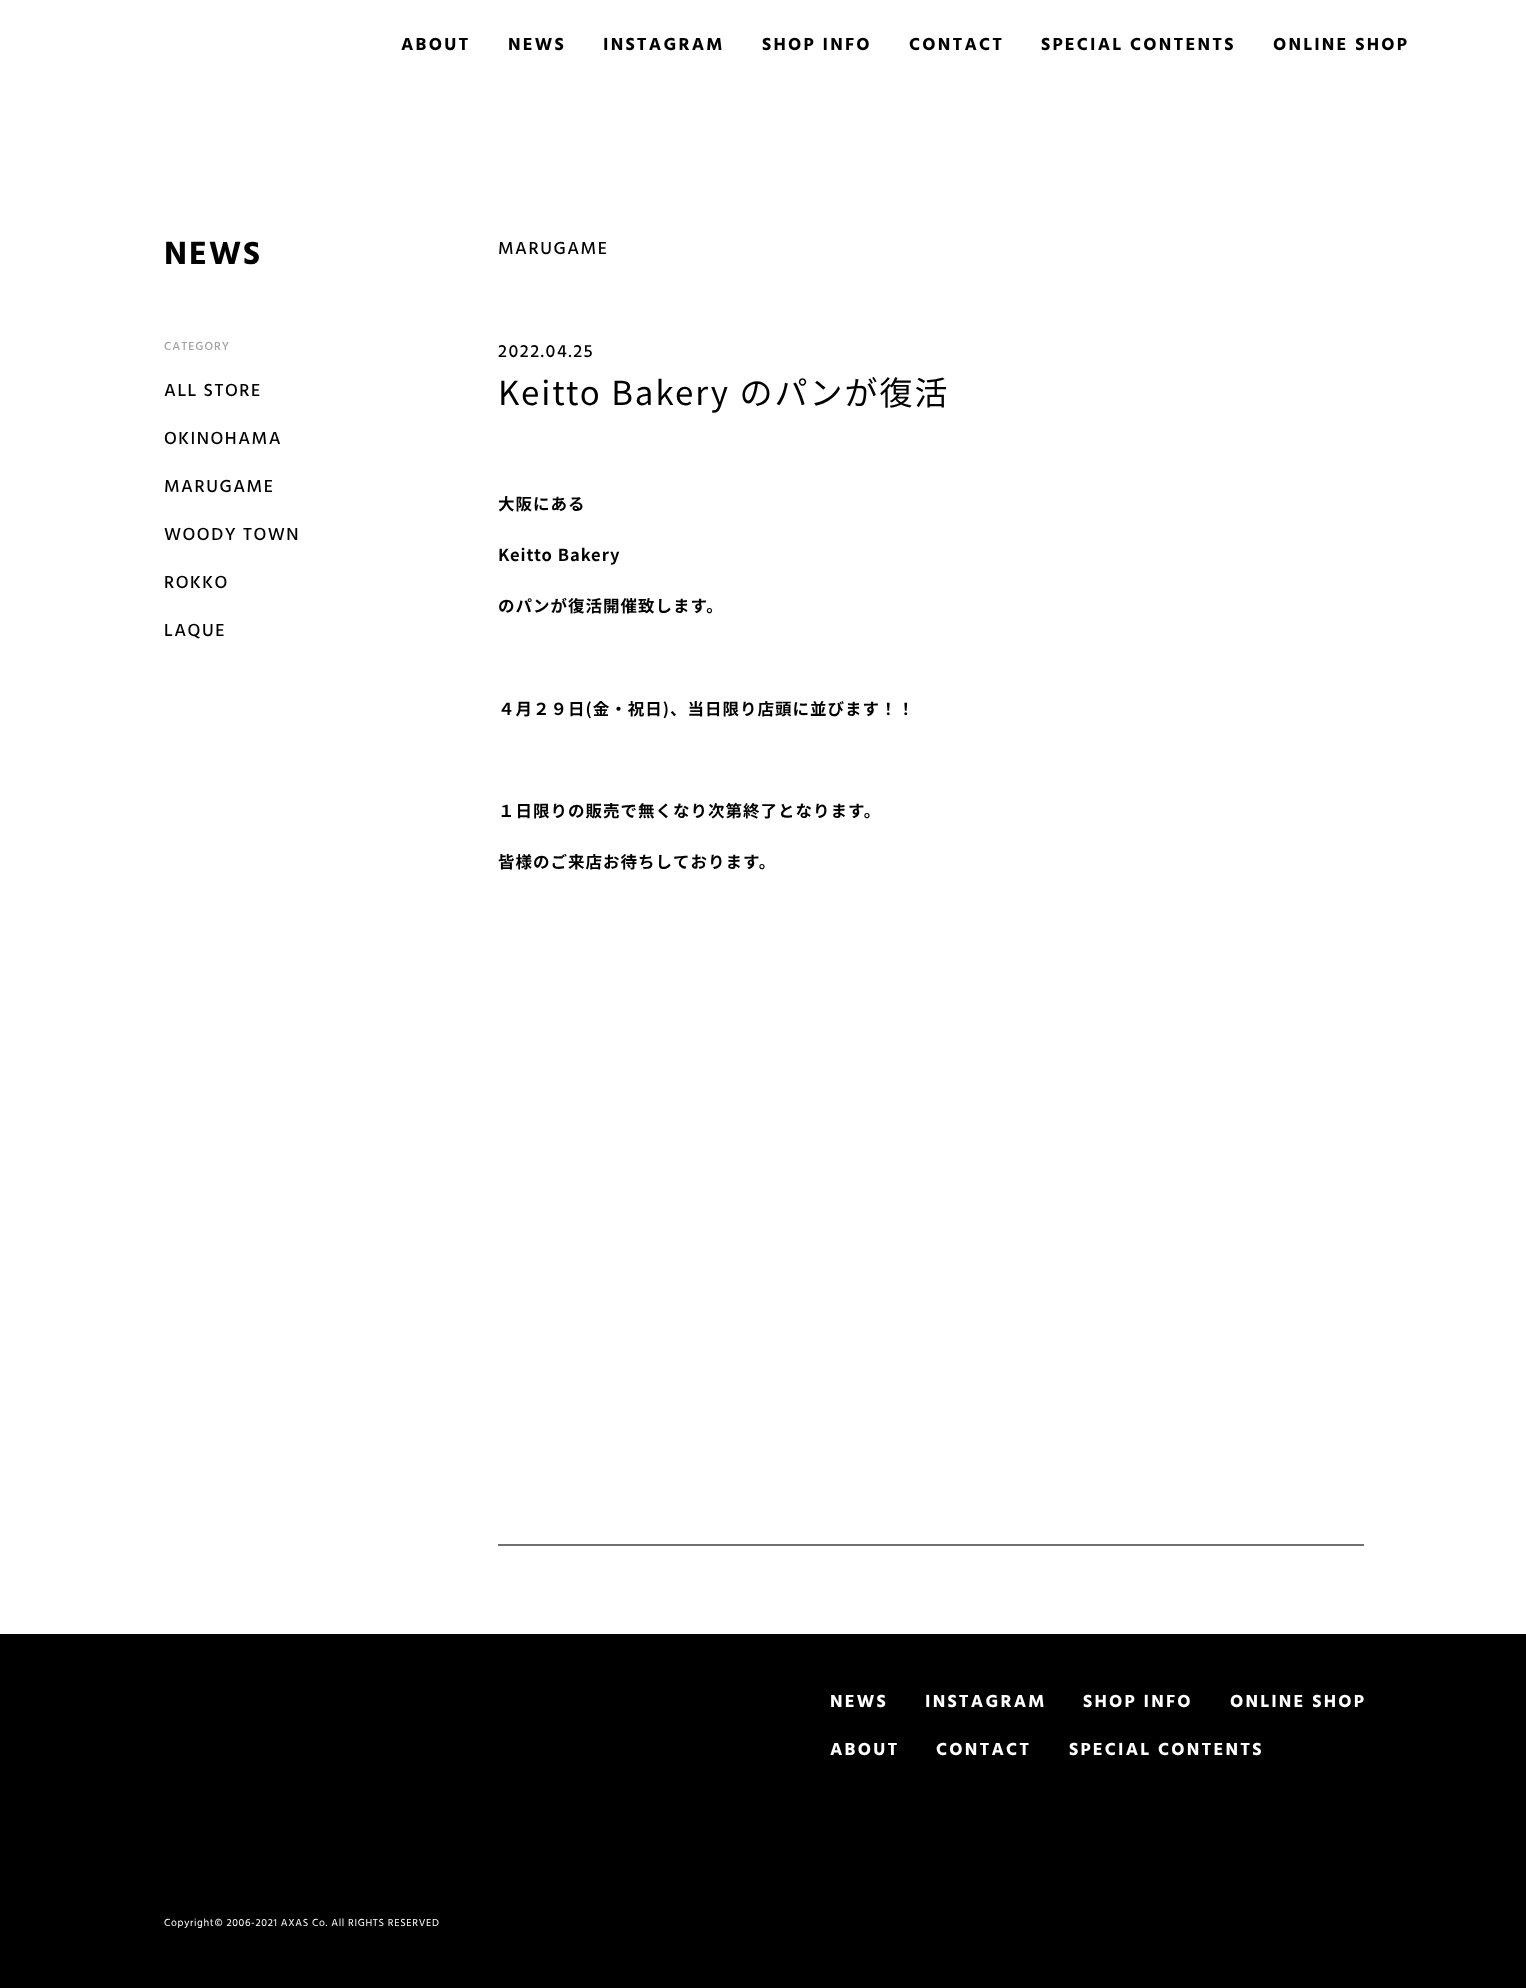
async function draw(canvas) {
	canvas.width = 1526;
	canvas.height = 1988;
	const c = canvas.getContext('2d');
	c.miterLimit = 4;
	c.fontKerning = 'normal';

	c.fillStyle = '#fff';
	c.fillRect(0, 0, 1526, 1988);
	c.letterSpacing = '2.2px';
	c.font = 'bold 18px Hind';
	c.fillStyle = '#000';
	for (const [text, x, y] of [
		['ABOUT', 401, 50],
		['NEWS', 508, 50],
		['INSTAGRAM', 603, 50],
		['SHOP INFO', 762, 50],
		['CONTACT', 909, 50],
		['SPECIAL CONTENTS', 1041, 50],
		['ONLINE SHOP', 1273, 50],
	]) {
		c.fillText(text, x, y);
	}
	c.letterSpacing = '2px';
	c.font = 'bold 33px Hind';
	c.fillText('NEWS', 164, 264);
	c.letterSpacing = '1px';
	c.font = '500 12px Hind';
	c.fillStyle = '#a2a2a2';
	c.fillText('CATEGORY', 164, 350);
	c.letterSpacing = '1.5px';
	c.font = '500 18px Hind';
	c.fillStyle = '#000';
	for (const [text, x, y] of [
		['ALL STORE', 164, 396],
		['OKINOHAMA', 164, 444],
		['MARUGAME', 164, 492],
		['WOODY TOWN', 164, 540],
		['ROKKO', 164, 588],
		['LAQUE', 164, 636],
		['MARUGAME', 498, 254],
	]) {
		c.fillText(text, x, y);
	}
	c.fillStyle = '#707070';
	c.fillRect(498, 1544, 866, 2);
	c.fillStyle = '#000';
	c.fillText('2022.04.25', 498, 357);
	c.letterSpacing = '2px';
	c.font = '33px Noto Sans JP';
	c.fillText('Keitto Bakery のパンが復活', 498, 405);
	c.letterSpacing = '1px';
	c.font = 'bold 16.5px Noto Sans JP';
	for (const [text, x, y] of [
		['大阪にある', 498, 510],
		['Keitto Bakery', 498, 561],
		['のパンが復活開催致します。', 498, 612],
		['４月２９日(金・祝日)、当日限り店頭に並びます！！', 498, 715],
		['１日限りの販売で無くなり次第終了となります。', 498, 817],
		['皆様のご来店お待ちしております。', 498, 868],
	]) {
		c.fillText(text, x, y);
	}
	c.fillRect(0, 1634, 1526, 354);
	c.letterSpacing = '2.2px';
	c.font = 'bold 18px Hind';
	c.fillStyle = '#fff';
	for (const [text, x, y] of [
		['NEWS', 830, 1707],
		['INSTAGRAM', 925, 1707],
		['SHOP INFO', 1083, 1707],
		['ONLINE SHOP', 1230, 1707],
		['ABOUT', 830, 1755],
		['CONTACT', 936, 1755],
		['SPECIAL CONTENTS', 1069, 1755],
	]) {
		c.fillText(text, x, y);
	}
	c.letterSpacing = '0.65px';
	c.font = '10.5px Hind';
	c.fillText('Copyright© 2006-2021 AXAS Co. All RIGHTS RESERVED', 164, 1926);
}

draw(document.querySelector('canvas'));
